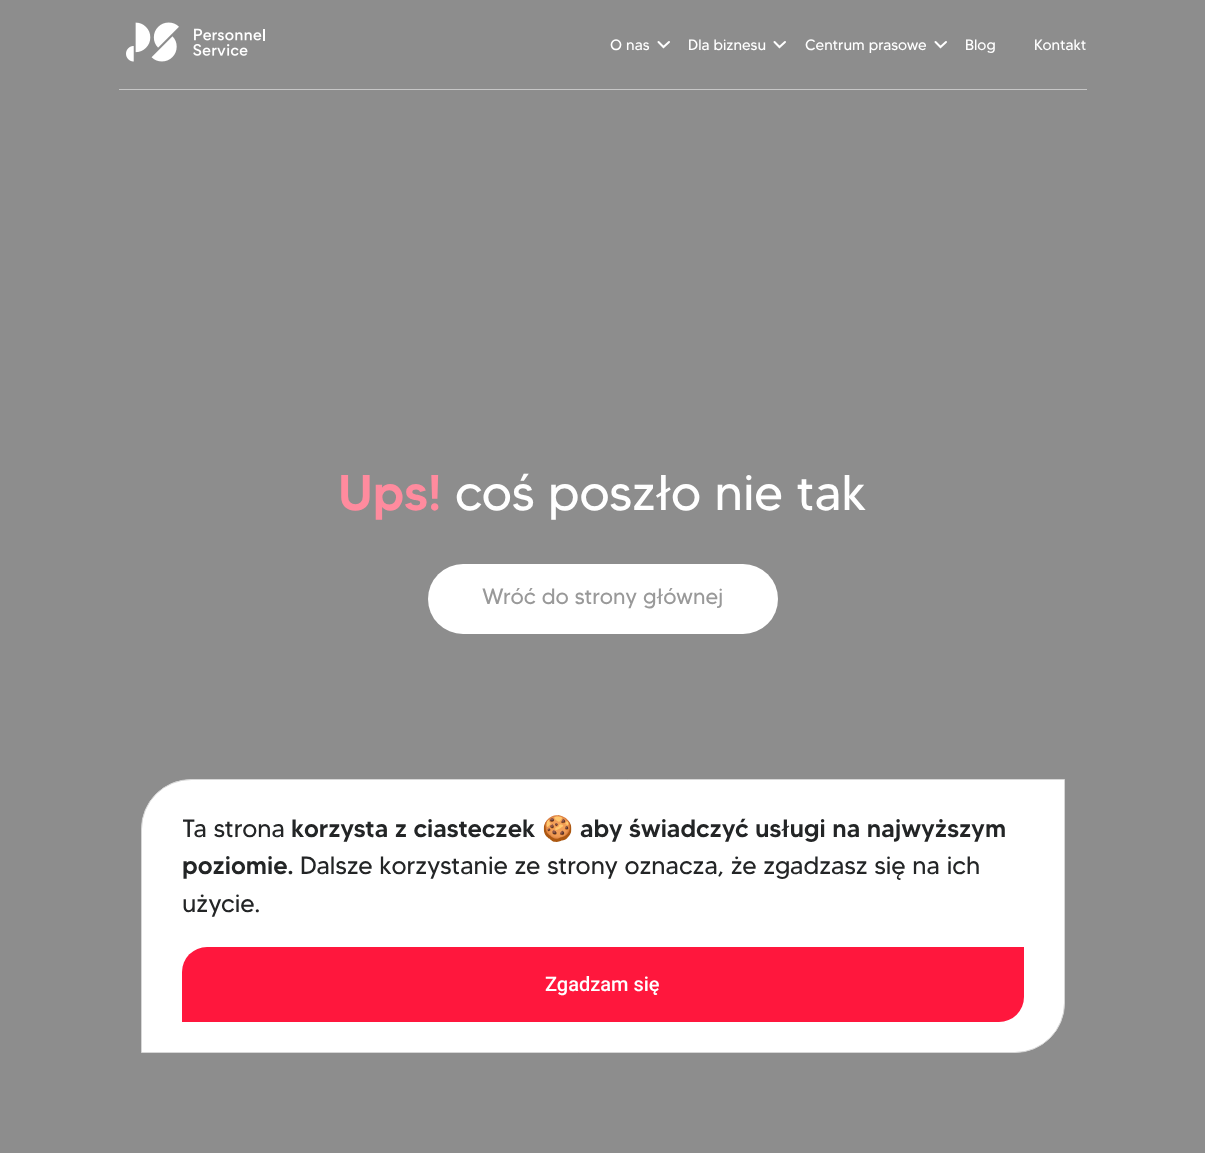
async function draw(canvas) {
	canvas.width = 1205;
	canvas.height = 1153;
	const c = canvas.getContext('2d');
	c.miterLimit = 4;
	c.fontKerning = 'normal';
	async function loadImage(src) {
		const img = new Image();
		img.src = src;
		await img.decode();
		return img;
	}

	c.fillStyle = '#8d8d8d';
	c.fillRect(0, 0, 1205, 1153);
	c.drawImage(await loadImage('img1.png'), 126, 22, 139, 40);
	c.font = '15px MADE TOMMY';
	c.fillStyle = '#fff';
	c.fillText('O nas', 610, 50);
	c.beginPath();
	c.moveTo(658.5, 42);
	c.lineTo(663.5, 47);
	c.lineTo(669, 42);
	c.strokeStyle = '#fff';
	c.lineWidth = 2;
	c.lineCap = 'round';
	c.stroke();
	c.fillText('Dla biznesu', 688, 50);
	c.beginPath();
	c.moveTo(774.5, 42);
	c.lineTo(779.5, 47);
	c.lineTo(785, 42);
	c.stroke();
	c.fillText('Centrum prasowe', 805, 50);
	c.beginPath();
	c.moveTo(935.5, 42);
	c.lineTo(940.5, 47);
	c.lineTo(946, 42);
	c.stroke();
	c.fillText('Blog', 965, 50);
	c.fillText('Kontakt', 1034, 50);
	c.fillStyle = '#c6c6c6';
	c.fillRect(119, 89, 968, 1);
	c.font = '500 50px MADE TOMMY';
	c.fillStyle = '#ff8b9e';
	c.fillText('Ups!', 338, 510);
	c.font = '50px MADE TOMMY';
	c.fillStyle = '#fff';
	c.fillText('coś poszło nie tak', 455, 510);
	c.beginPath();
	c.roundRect(428, 564, 350, 70, 35);
	c.fill();
	c.font = '22px MADE TOMMY';
	c.fillStyle = '#999';
	c.fillText('Wróć do strony głównej', 482, 604);
	c.fillStyle = '#fff';
	c.beginPath();
	c.roundRect(141.5, 779.5, 923, 273, [49.5, 0, 49.5, 0]);
	c.fill();
	c.strokeStyle = '#d7d7d7';
	c.lineWidth = 1;
	c.stroke();
	c.font = '25px MADE TOMMY';
	c.fillStyle = '#232526';
	c.fillText('Ta strona', 182, 837);
	c.font = '500 25px MADE TOMMY';
	c.fillText('korzysta z ciasteczek', 291, 837);
	c.font = '25px Noto Color Emoji';
	c.fillText('🍪', 542, 837);
	c.font = '500 25px MADE TOMMY';
	c.fillText('aby świadczyć usługi na najwyższym', 580, 837);
	c.fillText('poziomie.', 182, 874);
	c.font = '25px MADE TOMMY';
	c.fillText('Dalsze korzystanie ze strony oznacza, że zgadzasz się na ich', 300, 874);
	c.fillText('użycie.', 182, 912);
	c.fillStyle = '#ff173d';
	c.beginPath();
	c.roundRect(182, 947, 842, 75, [25, 0, 25, 0]);
	c.fill();
	c.font = '500 20px Roboto';
	c.fillStyle = '#fff';
	c.fillText('Zgadzam się', 545, 991);
}

draw(document.querySelector('canvas'));
